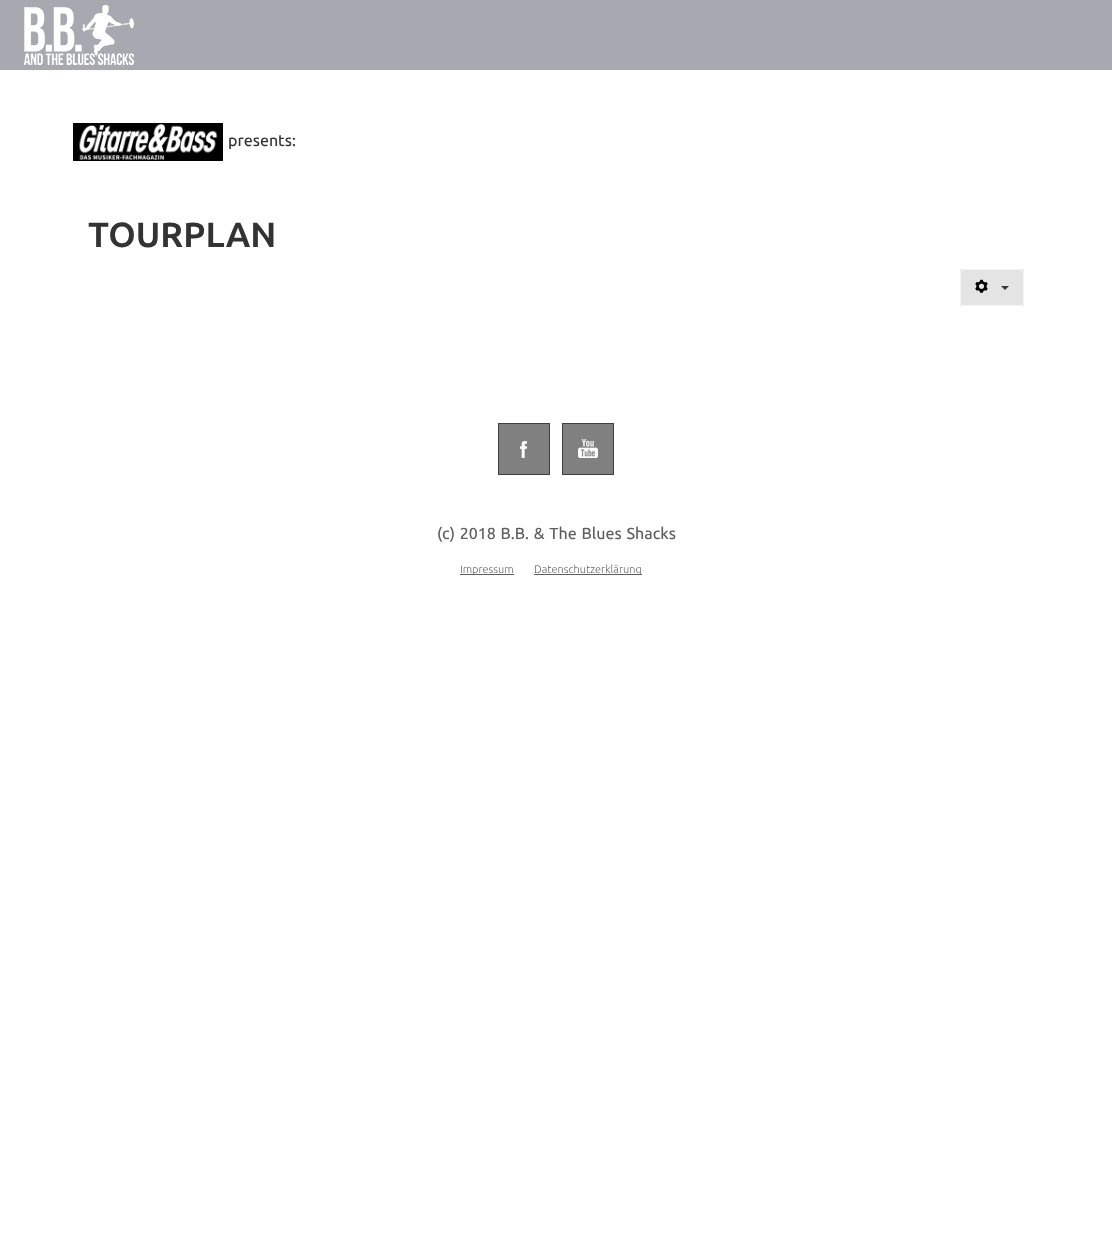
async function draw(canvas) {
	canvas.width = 1112;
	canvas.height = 1246;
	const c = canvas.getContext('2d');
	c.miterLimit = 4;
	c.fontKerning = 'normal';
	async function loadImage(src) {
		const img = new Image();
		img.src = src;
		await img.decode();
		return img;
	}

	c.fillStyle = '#fff';
	c.fillRect(0, 0, 1112, 1246);
	c.fillStyle = '#ededed';
	c.fillRect(960, 269, 64, 37);
	c.fillStyle = '#a8a9b0';
	c.fillRect(0, 0, 1112, 70);
	c.drawImage(await loadImage('img1.png'), 24, 5, 110, 60);
	c.drawImage(await loadImage('img2.png'), 73, 123, 150, 38);
	c.font = '500 16px Ubuntu';
	c.fillStyle = '#333';
	c.fillText('presents:', 228, 146);
	c.font = 'bold 35px Ubuntu';
	c.fillText('TOURPLAN', 88, 247);
	c.fillStyle = '#e4e4e4';
	c.beginPath();
	c.roundRect(960.5, 269.5, 63, 36, 3.5);
	c.fill();
	c.strokeStyle = '#f5f5f5';
	c.stroke();
	c.drawImage(await loadImage('img3.png'), 975, 279, 13, 14);
	c.fillStyle = '#383838';
	c.beginPath();
	c.moveTo(1001, 286);
	c.lineTo(1009, 286);
	c.lineTo(1005, 290);
	c.closePath();
	c.fill();
	c.fillStyle = '#808080';
	c.fillRect(499, 424, 50, 50);
	c.drawImage(await loadImage('img4.png'), 520, 441, 7, 17);
	c.strokeStyle = '#404040';
	c.strokeRect(498.5, 423.5, 51, 51);
	c.fillRect(563, 424, 50, 50);
	c.drawImage(await loadImage('img5.png'), 578, 439, 20, 19);
	c.strokeRect(562.5, 423.5, 51, 51);
	c.wordSpacing = '1px';
	c.font = '500 16px Ubuntu';
	c.fillStyle = '#5e5e5e';
	c.fillText('(c) 2018 B.B. & The Blues Shacks', 437, 539);
	c.fillRect(460, 574, 54, 1);
	c.wordSpacing = '0px';
	c.font = '300 11px Ubuntu';
	c.fillText('Impressum', 460, 573);
	c.fillRect(534, 574, 108, 1);
	c.fillText('Datenschutzerklärung', 534, 573);
}

draw(document.querySelector('canvas'));
